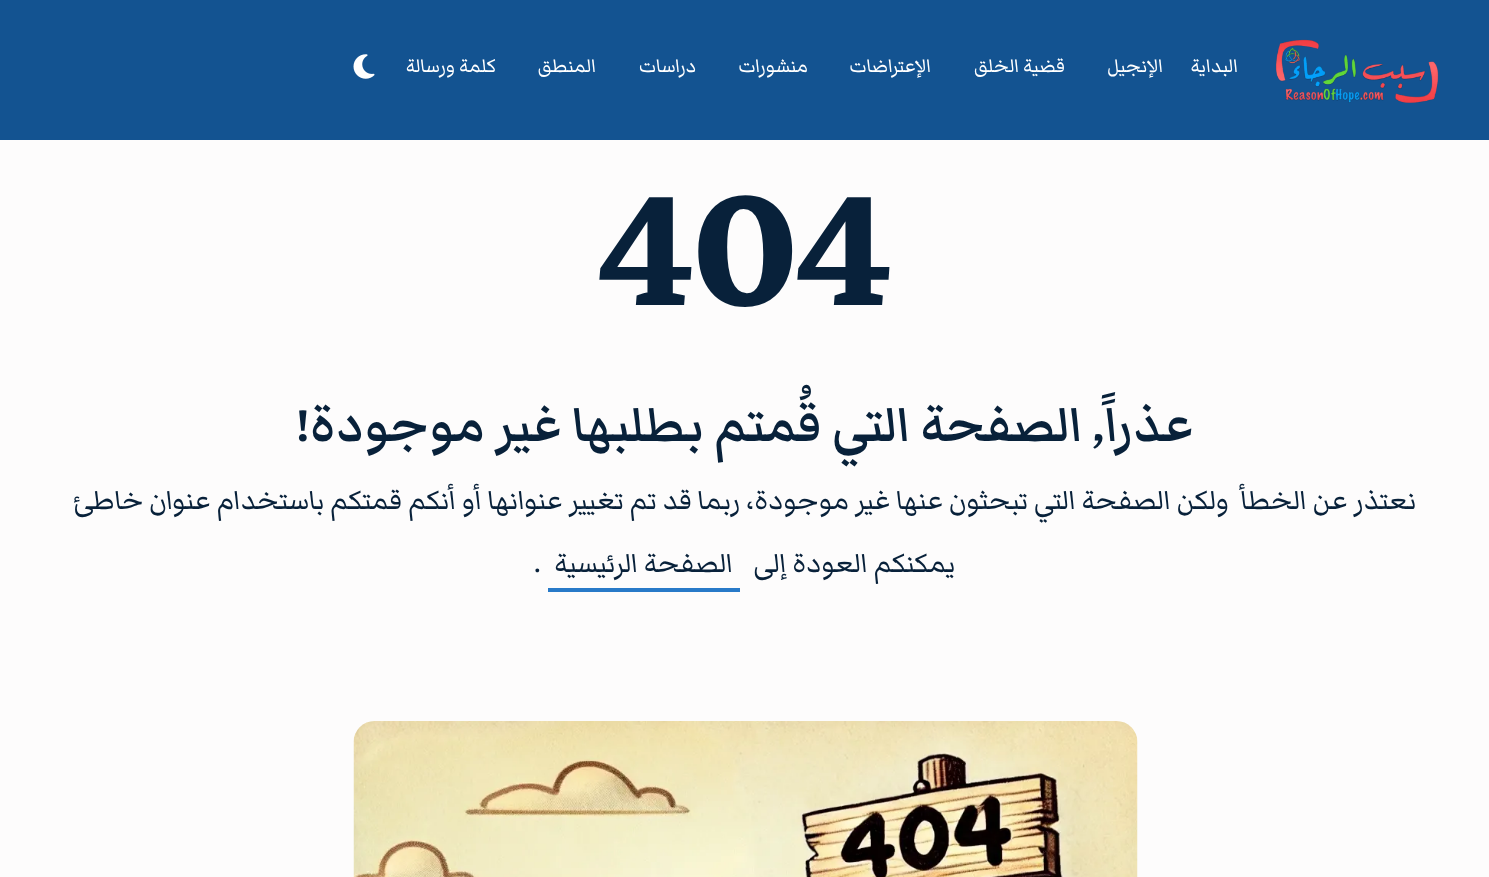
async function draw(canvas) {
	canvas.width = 1489;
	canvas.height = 877;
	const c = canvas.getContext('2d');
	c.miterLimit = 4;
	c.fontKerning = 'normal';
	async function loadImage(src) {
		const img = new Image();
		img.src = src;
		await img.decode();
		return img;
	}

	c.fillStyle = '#fdfcfc';
	c.fillRect(0, 0, 1489, 877);
	c.fillStyle = '#135391';
	c.fillRect(0, 0, 1489, 140);
	c.drawImage(await loadImage('img1.png'), 1275, 39, 164, 64);
	c.direction = 'rtl';
	c.font = '24.5px Markazi Text';
	c.fillStyle = '#fff';
	for (const [text, x, y] of [
		['البداية', 1238, 72],
		['الإنجيل', 1163, 72],
		['قضية الخلق', 1065, 72],
		['الإعتراضات', 931, 72],
		['منشورات', 808, 72],
		['دراسات', 696, 72],
		['المنطق', 596, 72],
		['كلمة ورسالة', 496, 72],
	]) {
		c.fillText(text, x, y);
	}
	c.drawImage(await loadImage('img2.png'), 353, 54, 22, 25);
	c.direction = 'ltr';
	c.font = 'bold 224px Markazi Text';
	c.fillStyle = '#08213a';
	c.fillText('404', 599, 305);
	c.direction = 'rtl';
	c.font = '600 63px Markazi Text';
	c.fillText('عذراً, الصفحة التي قُمتم بطلبها غير موجودة!', 1194, 441);
	c.font = '35px Markazi Text';
	for (const [text, x, y] of [
		['نعتذر عن الخطأ  ولكن الصفحة التي تبحثون عنها غير موجودة، ربما قد تم تغيير عنوانها أو أنكم قمتكم باستخدام عنوان خاطئ', 1416, 509],
		['يمكنكم العودة إلى', 955, 572],
		['الصفحة الرئيسية', 733, 572],
	]) {
		c.fillText(text, x, y);
	}
	c.fillStyle = '#287ac8';
	c.fillRect(548, 588, 192, 4);
	c.direction = 'ltr';
	c.fillStyle = '#08213a';
	c.fillText('.', 534, 572);
	c.drawImage(await loadImage('img3.png'), 353, 721, 785, 156);
}

draw(document.querySelector('canvas'));
